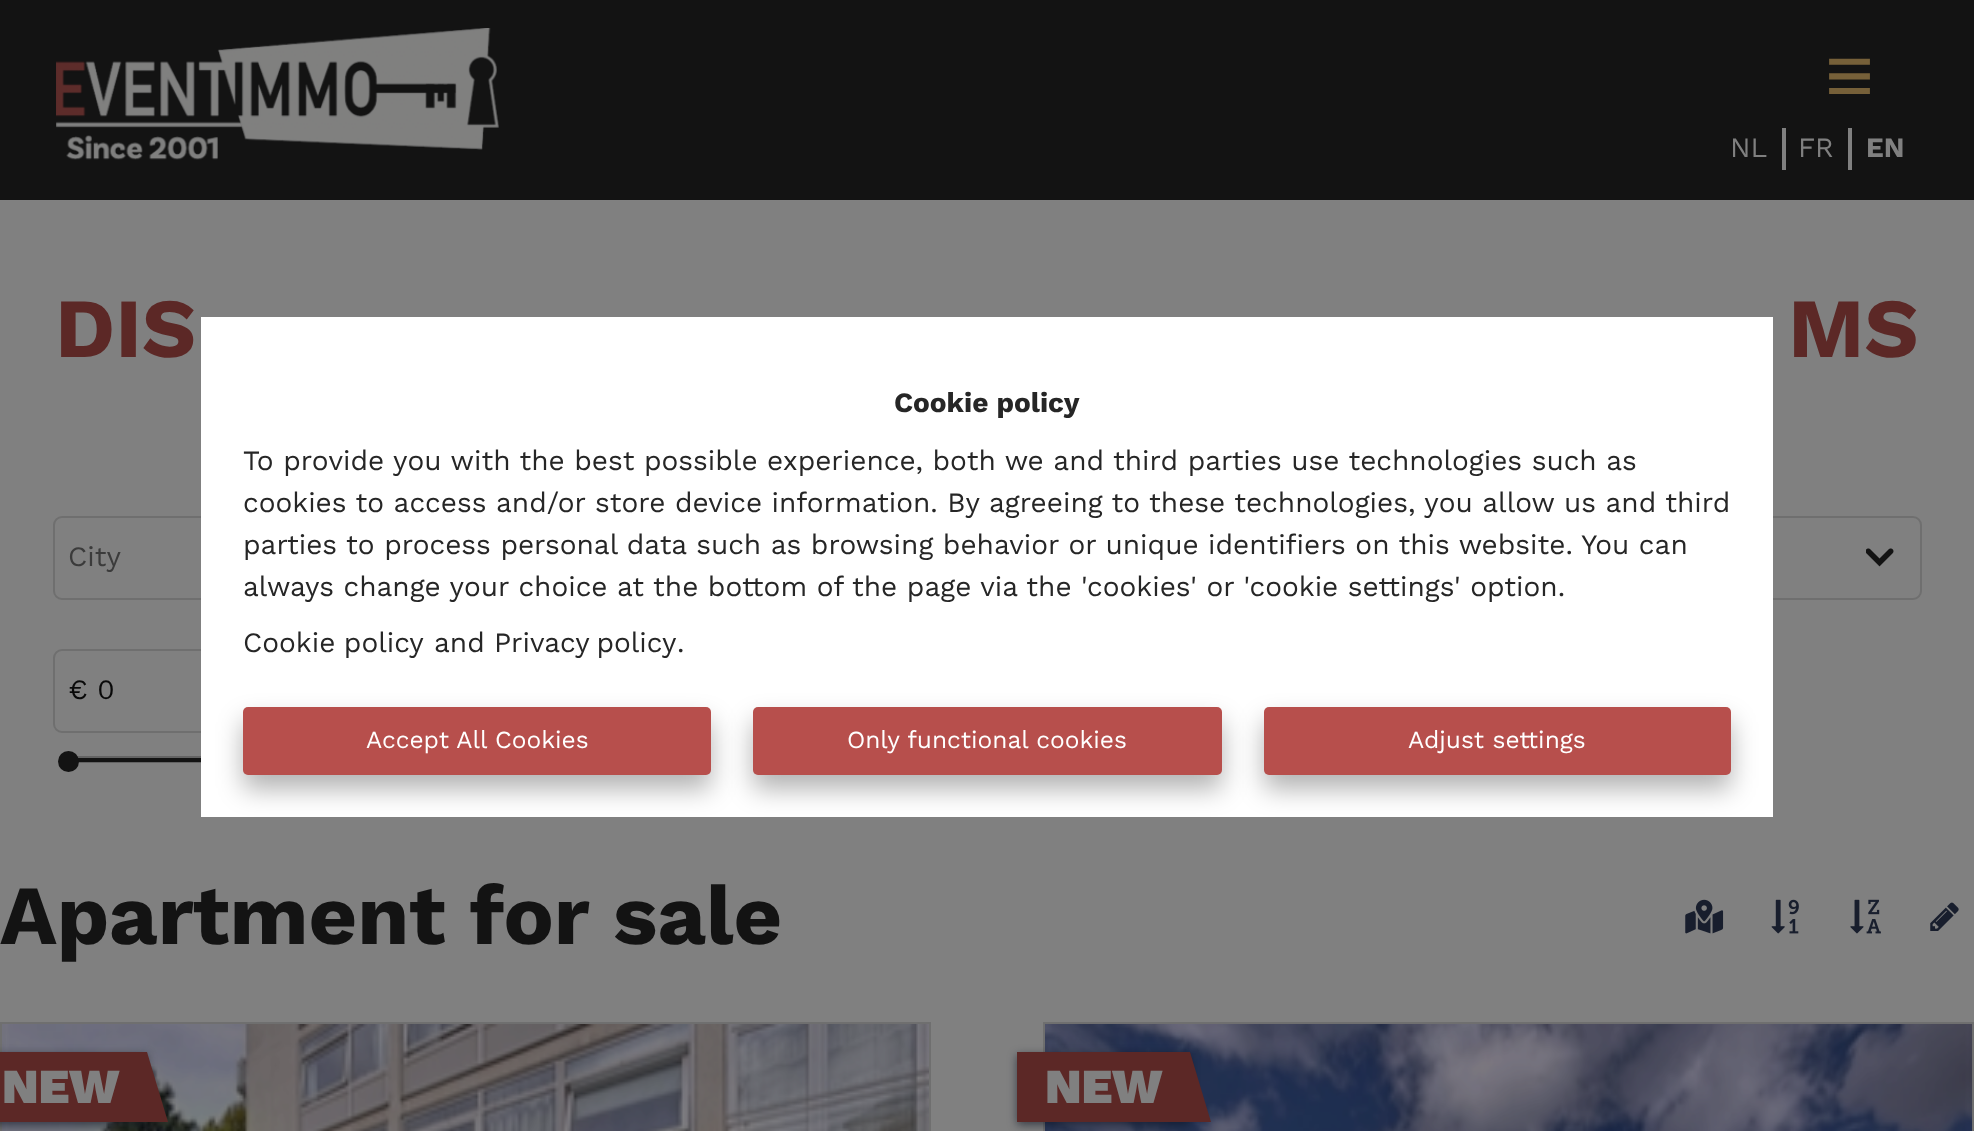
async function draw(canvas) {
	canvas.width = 1974;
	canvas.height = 1131;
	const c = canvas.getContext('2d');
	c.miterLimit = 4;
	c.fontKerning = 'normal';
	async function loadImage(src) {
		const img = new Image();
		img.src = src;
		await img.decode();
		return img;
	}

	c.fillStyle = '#808080';
	c.fillRect(0, 0, 1974, 1131);
	c.fillStyle = '#131313';
	c.fillRect(0, 0, 1974, 200);
	c.drawImage(await loadImage('img1.png'), 56, 28, 443, 132);
	c.font = '84px Liberation Sans';
	c.fillStyle = '#766039';
	c.fillText('≡', 1825, 104);
	c.fillStyle = '#808080';
	c.fillRect(1782, 128, 4, 42);
	c.font = '28px Work Sans';
	c.fillText('NL', 1730, 157);
	c.fillRect(1848, 128, 4, 42);
	c.fillText('FR', 1798, 157);
	c.font = 'bold 28px Work Sans';
	c.fillText('EN', 1866, 157);
	c.font = 'bold 84px Work Sans';
	c.fillStyle = '#5c2826';
	c.fillText('DIS', 55, 357);
	c.fillText('MS', 1788, 357);
	c.beginPath();
	c.roundRect(54, 517, 908, 82, 8);
	c.strokeStyle = '#6f6f6f';
	c.lineWidth = 2;
	c.stroke();
	c.font = '28px Work Sans';
	c.fillStyle = '#3b3b3b';
	c.fillText('City', 68, 566);
	c.beginPath();
	c.roundRect(1013, 517, 908, 82, 8);
	c.stroke();
	c.drawImage(await loadImage('img2.png'), 1866, 548, 28, 19);
	c.beginPath();
	c.roundRect(54, 650, 404, 82, 8);
	c.stroke();
	c.fillStyle = '#090909';
	c.fillText('€ 0', 68, 699);
	c.strokeStyle = '#636363';
	c.strokeRect(68, 757, 880, 5);
	c.fillStyle = '#131313';
	c.fillRect(78, 758, 123, 4);
	c.beginPath();
	c.arc(68.5, 761.5, 10.5, 0, 2 * Math.PI);
	c.fill();
	c.font = 'bold 84px Work Sans';
	c.fillText('Apartment for sale', 0, 944);
	c.drawImage(await loadImage('img3.png'), 1685, 899, 39, 35);
	c.drawImage(await loadImage('img4.png'), 1771, 899, 28, 35);
	c.drawImage(await loadImage('img5.png'), 1850, 899, 31, 35);
	c.drawImage(await loadImage('img6.png'), 1930, 902, 29, 29);
	c.strokeStyle = '#6f6f6f';
	c.strokeRect(1, 1023, 929, 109);
	c.drawImage(await loadImage('img7.png'), 2, 1024, 927, 107);
	c.fillStyle = '#09112099';
	c.filter = 'blur(5px)';
	c.beginPath();
	c.rect(-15, 1055, 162, 70);
	c.fill();
	c.filter = 'none';
	c.fillStyle = '#5c2826';
	c.fillRect(0, 1052, 147, 70);
	c.font = '900 49px Work Sans';
	c.fillStyle = '#808080';
	c.fillText('NEW', 2, 1103);
	c.fillStyle = '#5c2826';
	c.beginPath();
	c.moveTo(147, 1122);
	c.lineTo(147, 1052);
	c.lineTo(168, 1122);
	c.closePath();
	c.fill();
	c.strokeRect(1044, 1023, 929, 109);
	c.drawImage(await loadImage('img8.png'), 1045, 1024, 927, 107);
	c.fillStyle = '#09112099';
	c.filter = 'blur(5px)';
	c.beginPath();
	c.rect(1017, 1055, 173, 70);
	c.fill();
	c.filter = 'none';
	c.fillStyle = '#5c2826';
	c.fillRect(1017, 1052, 173, 70);
	c.fillStyle = '#808080';
	c.fillText('NEW', 1045, 1103);
	c.fillStyle = '#5c2826';
	c.beginPath();
	c.moveTo(1190, 1122);
	c.lineTo(1190, 1052);
	c.lineTo(1211, 1122);
	c.closePath();
	c.fill();
	c.fillStyle = '#fff';
	c.fillRect(201, 317, 1572, 500);
	c.font = 'bold 28px Work Sans';
	c.fillStyle = '#262626';
	c.fillText('Cookie policy', 894, 412);
	c.font = '28px Work Sans';
	for (const [text, x, y] of [
		['To provide you with the best possible experience, both we and third parties use technologies such as', 243, 470],
		['cookies to access and/or store device information. By agreeing to these technologies, you allow us and third', 243, 512],
		['parties to process personal data such as browsing behavior or unique identifiers on this website. You can', 243, 554],
		['always change your choice at the bottom of the page via the \'cookies\' or \'cookie settings\' option.', 243, 596],
	]) {
		c.fillText(text, x, y);
	}
	c.wordSpacing = '-1px';
	c.fillText('Cookie policy', 243, 652);
	c.wordSpacing = '0px';
	c.fillText('and', 434, 652);
	c.wordSpacing = '-2px';
	c.fillText('Privacy policy', 494, 652);
	c.wordSpacing = '0px';
	c.fillText('.', 677, 652);
	c.fillStyle = '#0000004d';
	c.filter = 'blur(13px)';
	c.beginPath();
	c.roundRect(243, 721, 468, 68, 5);
	c.fill();
	c.filter = 'none';
	c.fillStyle = '#b74f4c';
	c.beginPath();
	c.roundRect(243, 707, 468, 68, 5);
	c.fill();
	c.font = '24.5px Work Sans';
	c.fillStyle = '#fff';
	c.fillText('Accept All Cookies', 366, 748);
	c.fillStyle = '#0000004d';
	c.filter = 'blur(13px)';
	c.beginPath();
	c.roundRect(753, 721, 469, 68, 5);
	c.fill();
	c.filter = 'none';
	c.fillStyle = '#b74f4c';
	c.beginPath();
	c.roundRect(753, 707, 469, 68, 5);
	c.fill();
	c.fillStyle = '#fff';
	c.fillText('Only functional cookies', 847, 748);
	c.fillStyle = '#0000004d';
	c.filter = 'blur(13px)';
	c.beginPath();
	c.roundRect(1264, 721, 467, 68, 5);
	c.fill();
	c.filter = 'none';
	c.fillStyle = '#b74f4c';
	c.beginPath();
	c.roundRect(1264, 707, 467, 68, 5);
	c.fill();
	c.fillStyle = '#fff';
	c.fillText('Adjust settings', 1408, 748);
}

draw(document.querySelector('canvas'));
